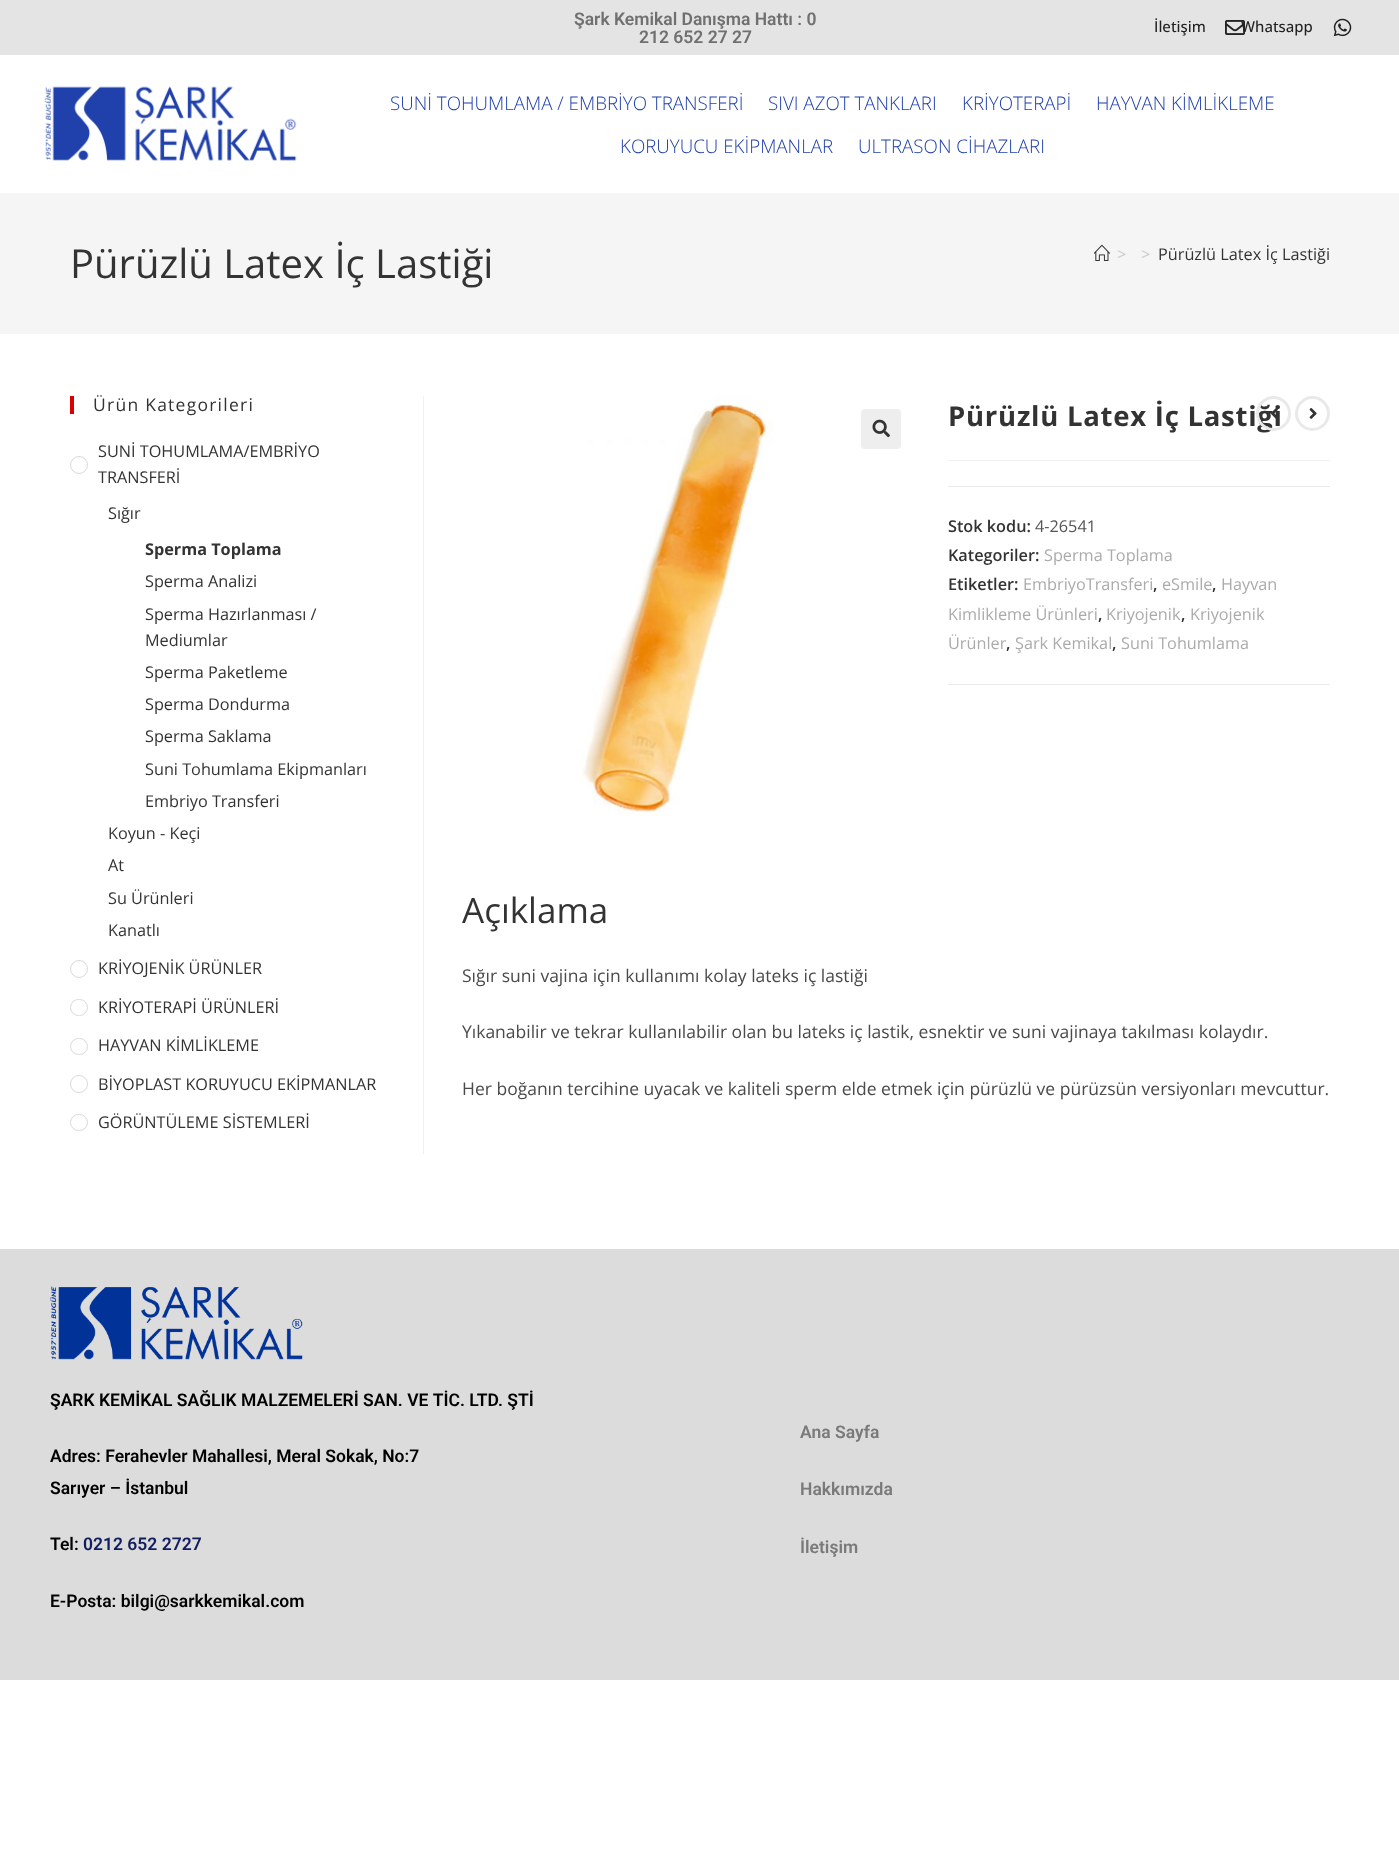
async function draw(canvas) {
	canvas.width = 1399;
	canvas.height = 1859;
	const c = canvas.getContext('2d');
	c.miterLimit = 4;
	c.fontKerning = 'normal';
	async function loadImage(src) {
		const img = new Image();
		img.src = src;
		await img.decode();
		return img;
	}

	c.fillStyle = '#fff';
	c.fillRect(0, 0, 1399, 1859);
	c.fillStyle = '#e4e4e4';
	c.fillRect(0, 0, 1399, 55);
	c.font = '600 17.5px Roboto';
	c.fillStyle = '#707070';
	c.fillText('Şark Kemikal Danışma Hattı : 0', 574, 25);
	c.fillText('212 652 27 27', 639, 43);
	c.font = '500 15px Open Sans';
	c.fillStyle = '#222';
	c.fillText('İletişim', 1154, 32);
	c.drawImage(await loadImage('img1.png'), 1225, 20, 20, 15);
	c.fillText('Whatsapp', 1241, 32);
	c.drawImage(await loadImage('img2.png'), 1333, 18, 19, 19);
	c.drawImage(await loadImage('img3.png'), 44, 86, 253, 75);
	c.font = '300 18.75px Open Sans';
	c.fillStyle = '#2040ab';
	for (const [text, x, y] of [
		['SUNİ TOHUMLAMA / EMBRİYO TRANSFERİ', 390, 110],
		['SIVI AZOT TANKLARI', 768, 110],
		['KRİYOTERAPİ', 962, 110],
		['HAYVAN KİMLİKLEME', 1096, 110],
		['KORUYUCU EKİPMANLAR', 620, 153],
		['ULTRASON CİHAZLARI', 858, 153],
	]) {
		c.fillText(text, x, y);
	}
	c.fillStyle = '#f5f5f5';
	c.fillRect(0, 193, 1399, 141);
	c.font = '40px Open Sans';
	c.fillStyle = '#333';
	c.fillText('Pürüzlü Latex İç Lastiği', 70, 278);
	c.drawImage(await loadImage('img4.png'), 1094, 244, 16, 17);
	c.font = '16.25px Open Sans';
	c.fillStyle = '#c6c6c6';
	c.fillText('>', 1117, 260);
	c.fillText('>', 1141, 260);
	c.fillStyle = '#333';
	c.fillText('Pürüzlü Latex İç Lastiği', 1158, 260);
	c.fillStyle = '#db0000';
	c.fillRect(70, 396, 4, 18);
	c.letterSpacing = '1.25px';
	c.font = '17.5px Open Sans';
	c.fillStyle = '#333';
	c.fillText('Ürün Kategorileri', 93, 411);
	c.letterSpacing = '0px';
	c.font = '16.25px Open Sans';
	c.fillText('SUNİ TOHUMLAMA/EMBRİYO', 98, 457);
	c.beginPath();
	c.arc(79, 465, 8.5, 0, 2 * Math.PI);
	c.strokeStyle = '#d9d9d9';
	c.stroke();
	c.fillText('TRANSFERİ', 98, 483);
	c.fillText('Sığır', 108, 519);
	c.font = 'bold 16.25px Open Sans';
	c.fillText('Sperma Toplama', 145, 555);
	c.font = '16.25px Open Sans';
	for (const [text, x, y] of [
		['Sperma Analizi', 145, 587],
		['Sperma Hazırlanması /', 145, 620],
		['Mediumlar', 145, 646],
		['Sperma Paketleme', 145, 678],
		['Sperma Dondurma', 145, 710],
		['Sperma Saklama', 145, 742],
		['Suni Tohumlama Ekipmanları', 145, 775],
		['Embriyo Transferi', 145, 807],
		['Koyun - Keçi', 108, 839],
		['At', 108, 871],
		['Su Ürünleri', 108, 904],
		['Kanatlı', 108, 936],
	]) {
		c.fillText(text, x, y);
	}
	c.beginPath();
	c.arc(79, 969, 8.5, 0, 2 * Math.PI);
	c.stroke();
	c.fillText('KRİYOJENİK ÜRÜNLER', 98, 974);
	c.beginPath();
	c.roundRect(70.5, 999.5, 17, 16, 8);
	c.stroke();
	c.fillText('KRİYOTERAPİ ÜRÜNLERİ', 98, 1013);
	c.beginPath();
	c.roundRect(70.5, 1038.5, 17, 16, 8);
	c.stroke();
	c.fillText('HAYVAN KİMLİKLEME', 98, 1051);
	c.beginPath();
	c.arc(79, 1084, 8.5, 0, 2 * Math.PI);
	c.stroke();
	c.fillText('BİYOPLAST KORUYUCU EKİPMANLAR', 98, 1090);
	c.beginPath();
	c.roundRect(70.5, 1114.5, 17, 16, 8);
	c.stroke();
	c.fillText('GÖRÜNTÜLEME SİSTEMLERİ', 98, 1128);
	c.fillStyle = '#f1f1f1';
	c.fillRect(423, 396, 1, 758);
	c.drawImage(await loadImage('img5.png'), 582, 396, 191, 420);
	c.fillStyle = '#eee';
	c.beginPath();
	c.roundRect(861, 409, 40, 40, 4);
	c.fill();
	c.drawImage(await loadImage('img6.png'), 872, 419, 18, 19);
	c.fillStyle = '#f1f1f1';
	c.fillRect(948, 460, 382, 1);
	c.letterSpacing = '0.75px';
	c.font = 'bold 27.5px Open Sans';
	c.fillStyle = '#333';
	c.fillText('Pürüzlü Latex İç Lastiği', 948, 426);
	c.fillStyle = '#eaeaea';
	c.fillRect(948, 486, 382, 1);
	c.fillRect(948, 684, 382, 1);
	c.letterSpacing = '0px';
	c.font = '600 16.25px Open Sans';
	c.fillStyle = '#333';
	c.fillText('Stok kodu:', 948, 532);
	c.font = '16.25px Open Sans';
	c.fillStyle = '#555';
	c.fillText('4-26541', 1035, 532);
	c.font = '600 16.25px Open Sans';
	c.fillStyle = '#333';
	c.fillText('Kategoriler:', 948, 561);
	c.font = '16.25px Open Sans';
	c.fillStyle = '#ababab';
	c.fillText('Sperma Toplama', 1044, 561);
	c.font = '600 16.25px Open Sans';
	c.fillStyle = '#333';
	c.fillText('Etiketler:', 948, 590);
	c.font = '16.25px Open Sans';
	c.fillStyle = '#ababab';
	c.fillText('EmbriyoTransferi', 1023, 590);
	c.font = '600 16.25px Open Sans';
	c.fillStyle = '#333';
	c.fillText(',', 1153, 590);
	c.font = '16.25px Open Sans';
	c.fillStyle = '#ababab';
	c.fillText('eSmile', 1162, 590);
	c.font = '600 16.25px Open Sans';
	c.fillStyle = '#333';
	c.fillText(',', 1212, 590);
	c.font = '16.25px Open Sans';
	c.fillStyle = '#ababab';
	c.fillText('Hayvan', 1221, 590);
	c.fillText('Kimlikleme Ürünleri', 948, 620);
	c.font = '600 16.25px Open Sans';
	c.fillStyle = '#333';
	c.fillText(',', 1098, 620);
	c.font = '16.25px Open Sans';
	c.fillStyle = '#ababab';
	c.fillText('Kriyojenik', 1106, 620);
	c.font = '600 16.25px Open Sans';
	c.fillStyle = '#333';
	c.fillText(',', 1181, 620);
	c.font = '16.25px Open Sans';
	c.fillStyle = '#ababab';
	c.fillText('Kriyojenik', 1190, 620);
	c.fillText('Ürünler', 948, 649);
	c.font = '600 16.25px Open Sans';
	c.fillStyle = '#333';
	c.fillText(',', 1006, 649);
	c.font = '16.25px Open Sans';
	c.fillStyle = '#ababab';
	c.fillText('Şark Kemikal', 1015, 649);
	c.font = '600 16.25px Open Sans';
	c.fillStyle = '#333';
	c.fillText(',', 1112, 649);
	c.font = '16.25px Open Sans';
	c.fillStyle = '#ababab';
	c.fillText('Suni Tohumlama', 1121, 649);
	c.beginPath();
	c.arc(1273.5, 413.5, 16, 0, 2 * Math.PI);
	c.strokeStyle = '#e9e9e9';
	c.lineWidth = 3;
	c.stroke();
	c.drawImage(await loadImage('img7.png'), 1271, 408, 7, 11);
	c.beginPath();
	c.arc(1312.5, 413.5, 16, 0, 2 * Math.PI);
	c.stroke();
	c.drawImage(await loadImage('img8.png'), 1309, 408, 8, 11);
	c.font = '35px Open Sans';
	c.fillStyle = '#333';
	c.fillText('Açıklama', 462, 923);
	c.font = '17.5px Open Sans';
	c.fillStyle = '#4a4a4a';
	for (const [text, x, y] of [
		['Sığır suni vajina için kullanımı kolay lateks iç lastiği', 462, 982],
		['Yıkanabilir ve tekrar kullanılabilir olan bu lateks iç lastik, esnektir ve suni vajinaya takılması kolaydır.', 462, 1038],
		['Her boğanın tercihine uyacak ve kaliteli sperm elde etmek için pürüzlü ve pürüzsün versiyonları mevcuttur.', 462, 1095],
	]) {
		c.fillText(text, x, y);
	}
	c.fillStyle = '#dcdcdc';
	c.fillRect(0, 1249, 1399, 431);
	c.drawImage(await loadImage('img9.png'), 50, 1286, 253, 74);
	c.font = '600 17.5px Roboto';
	c.fillStyle = '#000';
	for (const [text, x, y] of [
		['ŞARK KEMİKAL SAĞLIK MALZEMELERİ SAN. VE TİC. LTD. ŞTİ', 50, 1406],
		['Adres: Ferahevler Mahallesi, Meral Sokak, No:7', 50, 1462],
		['Sarıyer – İstanbul', 50, 1494],
		['Tel:', 50, 1550],
	]) {
		c.fillText(text, x, y);
	}
	c.fillStyle = '#121d5e';
	c.fillText('0212 652 2727', 83, 1550);
	c.fillStyle = '#000';
	c.fillText('E-Posta: bilgi@sarkkemikal.com', 50, 1607);
	c.fillStyle = '#7a7a7a';
	for (const [text, x, y] of [
		['Ana Sayfa', 800, 1438],
		['Hakkımızda', 800, 1495],
		['İletişim', 800, 1553],
	]) {
		c.fillText(text, x, y);
	}
}

draw(document.querySelector('canvas'));
